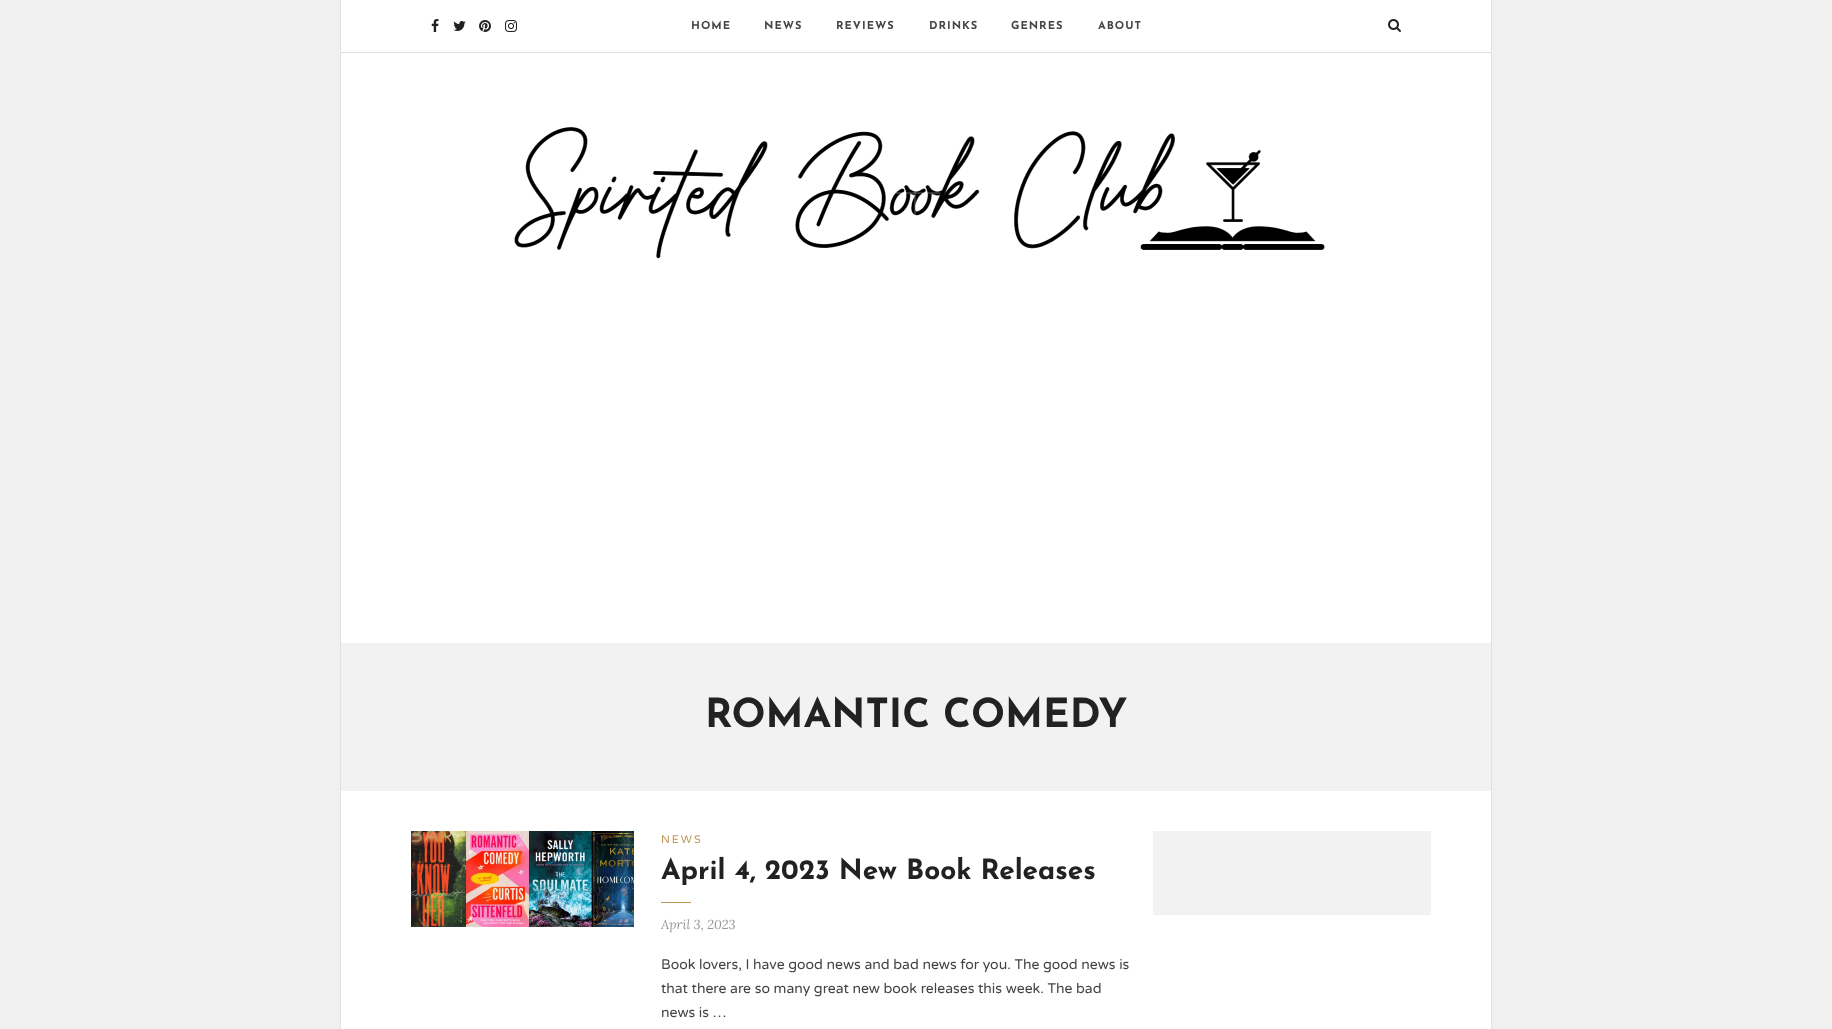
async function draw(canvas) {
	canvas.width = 1832;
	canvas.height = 1029;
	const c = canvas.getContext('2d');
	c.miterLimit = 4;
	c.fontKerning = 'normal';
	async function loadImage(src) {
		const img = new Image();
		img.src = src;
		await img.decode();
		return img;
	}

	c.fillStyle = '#f0f0f0';
	c.fillRect(0, 0, 1832, 1029);
	c.fillStyle = '#fff';
	c.fillRect(341, 53, 1150, 976);
	c.strokeStyle = '#e1e1e1';
	c.strokeRect(340.5, 0.5, 1151, 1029);
	c.fillRect(341, 0, 1150, 52);
	c.fillStyle = '#e1e1e1';
	c.fillRect(341, 52, 1150, 1);
	c.drawImage(await loadImage('img1.png'), 431, 19, 8, 13);
	c.drawImage(await loadImage('img2.png'), 453, 21, 13, 10);
	c.drawImage(await loadImage('img3.png'), 479, 20, 12, 12);
	c.drawImage(await loadImage('img4.png'), 505, 20, 12, 12);
	c.letterSpacing = '1px';
	c.font = 'bold 11px Josefin Sans';
	c.fillStyle = '#444';
	for (const [text, x, y] of [
		['HOME', 691, 29],
		['NEWS', 764, 29],
		['REVIEWS', 836, 29],
		['DRINKS', 929, 29],
		['GENRES', 1011, 29],
		['ABOUT', 1098, 29],
	]) {
		c.fillText(text, x, y);
	}
	c.drawImage(await loadImage('img5.png'), 1388, 19, 13, 13);
	c.drawImage(await loadImage('img6.png'), 514, 127, 811, 132);
	c.fillStyle = '#f2f2f2';
	c.fillRect(341, 643, 1150, 148);
	c.letterSpacing = '0px';
	c.font = 'bold 40px Josefin Sans';
	c.fillStyle = '#222';
	c.fillText('ROMANTIC COMEDY', 705, 727);
	c.drawImage(await loadImage('img7.png'), 411, 831, 223, 96);
	c.letterSpacing = '2px';
	c.font = '11px Varela Round';
	c.fillStyle = '#be9656';
	c.fillText('NEWS', 661, 843);
	c.letterSpacing = '0px';
	c.font = 'bold 28px Josefin Sans';
	c.fillStyle = '#222';
	c.fillText('April 4, 2023 New Book Releases', 661, 879);
	c.fillStyle = '#be9656';
	c.fillRect(661, 902, 30, 1);
	c.font = 'italic 13px Lora';
	c.fillStyle = '#999';
	c.fillText('April 3, 2023', 661, 929);
	c.font = '14px Varela Round';
	c.fillStyle = '#444';
	for (const [text, x, y] of [
		['Book lovers, I have good news and bad news for you. The good news is', 661, 969],
		['that there are so many great new book releases this week. The bad', 661, 993],
		['news is …', 661, 1017],
	]) {
		c.fillText(text, x, y);
	}
	c.fillStyle = '#f2f2f2';
	c.fillRect(1153, 831, 278, 84);
}

draw(document.querySelector('canvas'));
